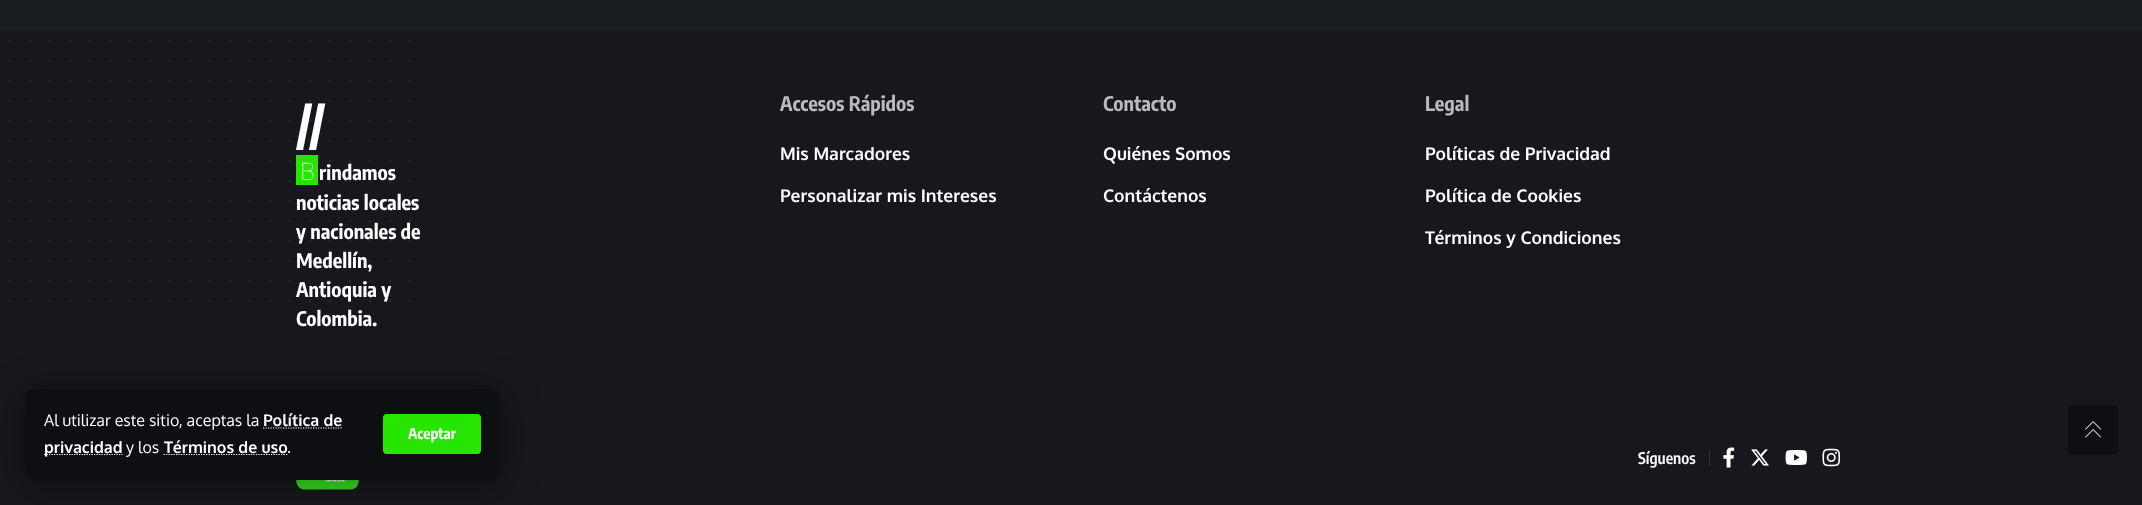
async function draw(canvas) {
	canvas.width = 2142;
	canvas.height = 505;
	const c = canvas.getContext('2d');
	c.miterLimit = 4;
	c.fontKerning = 'normal';
	async function loadImage(src) {
		const img = new Image();
		img.src = src;
		await img.decode();
		return img;
	}

	c.fillStyle = '#191c20';
	c.fillRect(0, 0, 2142, 505);
	c.fillStyle = '#16181c';
	c.fillRect(0, 31, 2142, 474);
	c.drawImage(await loadImage('img5.png'), 296, 480, 63, 10);
	c.fillStyle = '#00000066';
	c.filter = 'blur(19px)';
	c.beginPath();
	c.roundRect(25, 394, 475, 91, 9);
	c.fill();
	c.filter = 'none';
	c.fillStyle = '#0e0f12';
	c.beginPath();
	c.roundRect(25, 389, 475, 91, 9);
	c.fill();
	c.font = '16px Oxygen';
	c.fillStyle = '#fff';
	c.fillText('Al utilizar este sitio, aceptas la', 44, 426);
	c.font = 'bold 16px Oxygen';
	c.fillText('Política de', 263, 426);
	c.beginPath();
	c.moveTo(263, 428);
	c.lineTo(342.5, 428);
	c.strokeStyle = '#fff';
	c.lineWidth = 1.2;
	c.setLineDash([1.25, 1.25]);
	c.stroke();
	c.beginPath();
	c.moveTo(44, 454.5);
	c.lineTo(122.5, 454.5);
	c.stroke();
	c.fillText('privacidad', 44, 453);
	c.font = '16px Oxygen';
	c.fillText('y los', 126, 453);
	c.beginPath();
	c.moveTo(163.5, 454.5);
	c.lineTo(287.5, 454.5);
	c.stroke();
	c.font = 'bold 16px Oxygen';
	c.fillText('Términos de uso', 164, 453);
	c.font = '16px Oxygen';
	c.fillText('.', 287, 453);
	c.fillStyle = '#26e600';
	c.beginPath();
	c.roundRect(383, 414, 98, 40, 4);
	c.fill();
	c.font = 'bold 15px Encode Sans Condensed';
	c.fillStyle = '#fff';
	c.fillText('Aceptar', 408, 439);
	c.beginPath();
	c.moveTo(10, 41.2);
	c.lineTo(410.2, 41.2);
	c.strokeStyle = '#323437';
	c.lineWidth = 1.9;
	c.lineCap = 'round';
	c.setLineDash([0, 20]);
	c.stroke();
	c.beginPath();
	c.moveTo(10, 61.2);
	c.lineTo(410.2, 61.2);
	c.stroke();
	c.beginPath();
	c.moveTo(10, 81.2);
	c.lineTo(410.2, 81.2);
	c.stroke();
	c.beginPath();
	c.moveTo(10, 101.2);
	c.lineTo(410.2, 101.2);
	c.stroke();
	c.beginPath();
	c.moveTo(10, 121.2);
	c.lineTo(410.2, 121.2);
	c.stroke();
	c.beginPath();
	c.moveTo(10, 141.2);
	c.lineTo(410.2, 141.2);
	c.stroke();
	c.beginPath();
	c.moveTo(10, 161.2);
	c.lineTo(410.2, 161.2);
	c.stroke();
	c.beginPath();
	c.moveTo(10, 181.2);
	c.lineTo(410.2, 181.2);
	c.stroke();
	c.beginPath();
	c.moveTo(10, 201.2);
	c.lineTo(410.2, 201.2);
	c.stroke();
	c.beginPath();
	c.moveTo(10, 221.2);
	c.lineTo(410.2, 221.2);
	c.stroke();
	c.beginPath();
	c.moveTo(10, 241.2);
	c.lineTo(410.2, 241.2);
	c.stroke();
	c.beginPath();
	c.moveTo(10, 261.2);
	c.lineTo(410.2, 261.2);
	c.stroke();
	c.beginPath();
	c.moveTo(10, 281.2);
	c.lineTo(410.2, 281.2);
	c.stroke();
	c.beginPath();
	c.moveTo(10, 301.2);
	c.lineTo(410.2, 301.2);
	c.stroke();
	c.font = 'bold 50px Encode Sans Condensed';
	c.fillText('//', 296, 144);
	c.fillStyle = '#26e600';
	c.fillRect(296, 155, 22, 30);
	c.font = '100 24px Noto Sans';
	c.fillStyle = '#fff';
	c.fillText('B', 300, 180);
	c.font = 'bold 20px Encode Sans Condensed';
	for (const [text, x, y] of [
		['rindamos', 319, 180],
		['noticias locales', 296, 210],
		['y nacionales de', 296, 239],
		['Medellín,', 296, 268],
		['Antioquia y', 296, 297],
		['Colombia.', 296, 326],
	]) {
		c.fillText(text, x, y);
	}
	c.fillStyle = '#b9babb';
	c.fillText('Accesos Rápidos', 780, 111);
	c.font = 'bold 17.5px Oxygen';
	c.fillStyle = '#fff';
	c.fillText('Mis Marcadores', 780, 160);
	c.fillText('Personalizar mis Intereses', 780, 202);
	c.font = 'bold 20px Encode Sans Condensed';
	c.fillStyle = '#b9babb';
	c.fillText('Contacto', 1103, 111);
	c.font = 'bold 17.5px Oxygen';
	c.fillStyle = '#fff';
	c.fillText('Quiénes Somos', 1103, 160);
	c.fillText('Contáctenos', 1103, 202);
	c.font = 'bold 20px Encode Sans Condensed';
	c.fillStyle = '#b9babb';
	c.fillText('Legal', 1425, 111);
	c.font = 'bold 17.5px Oxygen';
	c.fillStyle = '#fff';
	for (const [text, x, y] of [
		['Políticas de Privacidad', 1425, 160],
		['Política de Cookies', 1425, 202],
		['Términos y Condiciones', 1425, 244],
	]) {
		c.fillText(text, x, y);
	}
	c.fillStyle = '#333437';
	c.fillRect(1709, 450, 1, 16);
	c.font = '600 16px Encode Sans Condensed';
	c.fillStyle = '#fff';
	c.fillText('Síguenos', 1638, 464);
	c.drawImage(await loadImage('img1.png'), 1723, 447, 12, 21);
	c.drawImage(await loadImage('img2.png'), 1751, 449, 18, 17);
	c.drawImage(await loadImage('img3.png'), 1785, 450, 22, 15);
	c.drawImage(await loadImage('img4.png'), 1822, 448, 18, 19);
	c.fillStyle = '#0e0f12';
	c.beginPath();
	c.roundRect(2068, 405, 50, 50, 4);
	c.fill();
	c.drawImage(await loadImage('img6.png'), 2085, 421, 16, 17);
}

draw(document.querySelector('canvas'));
